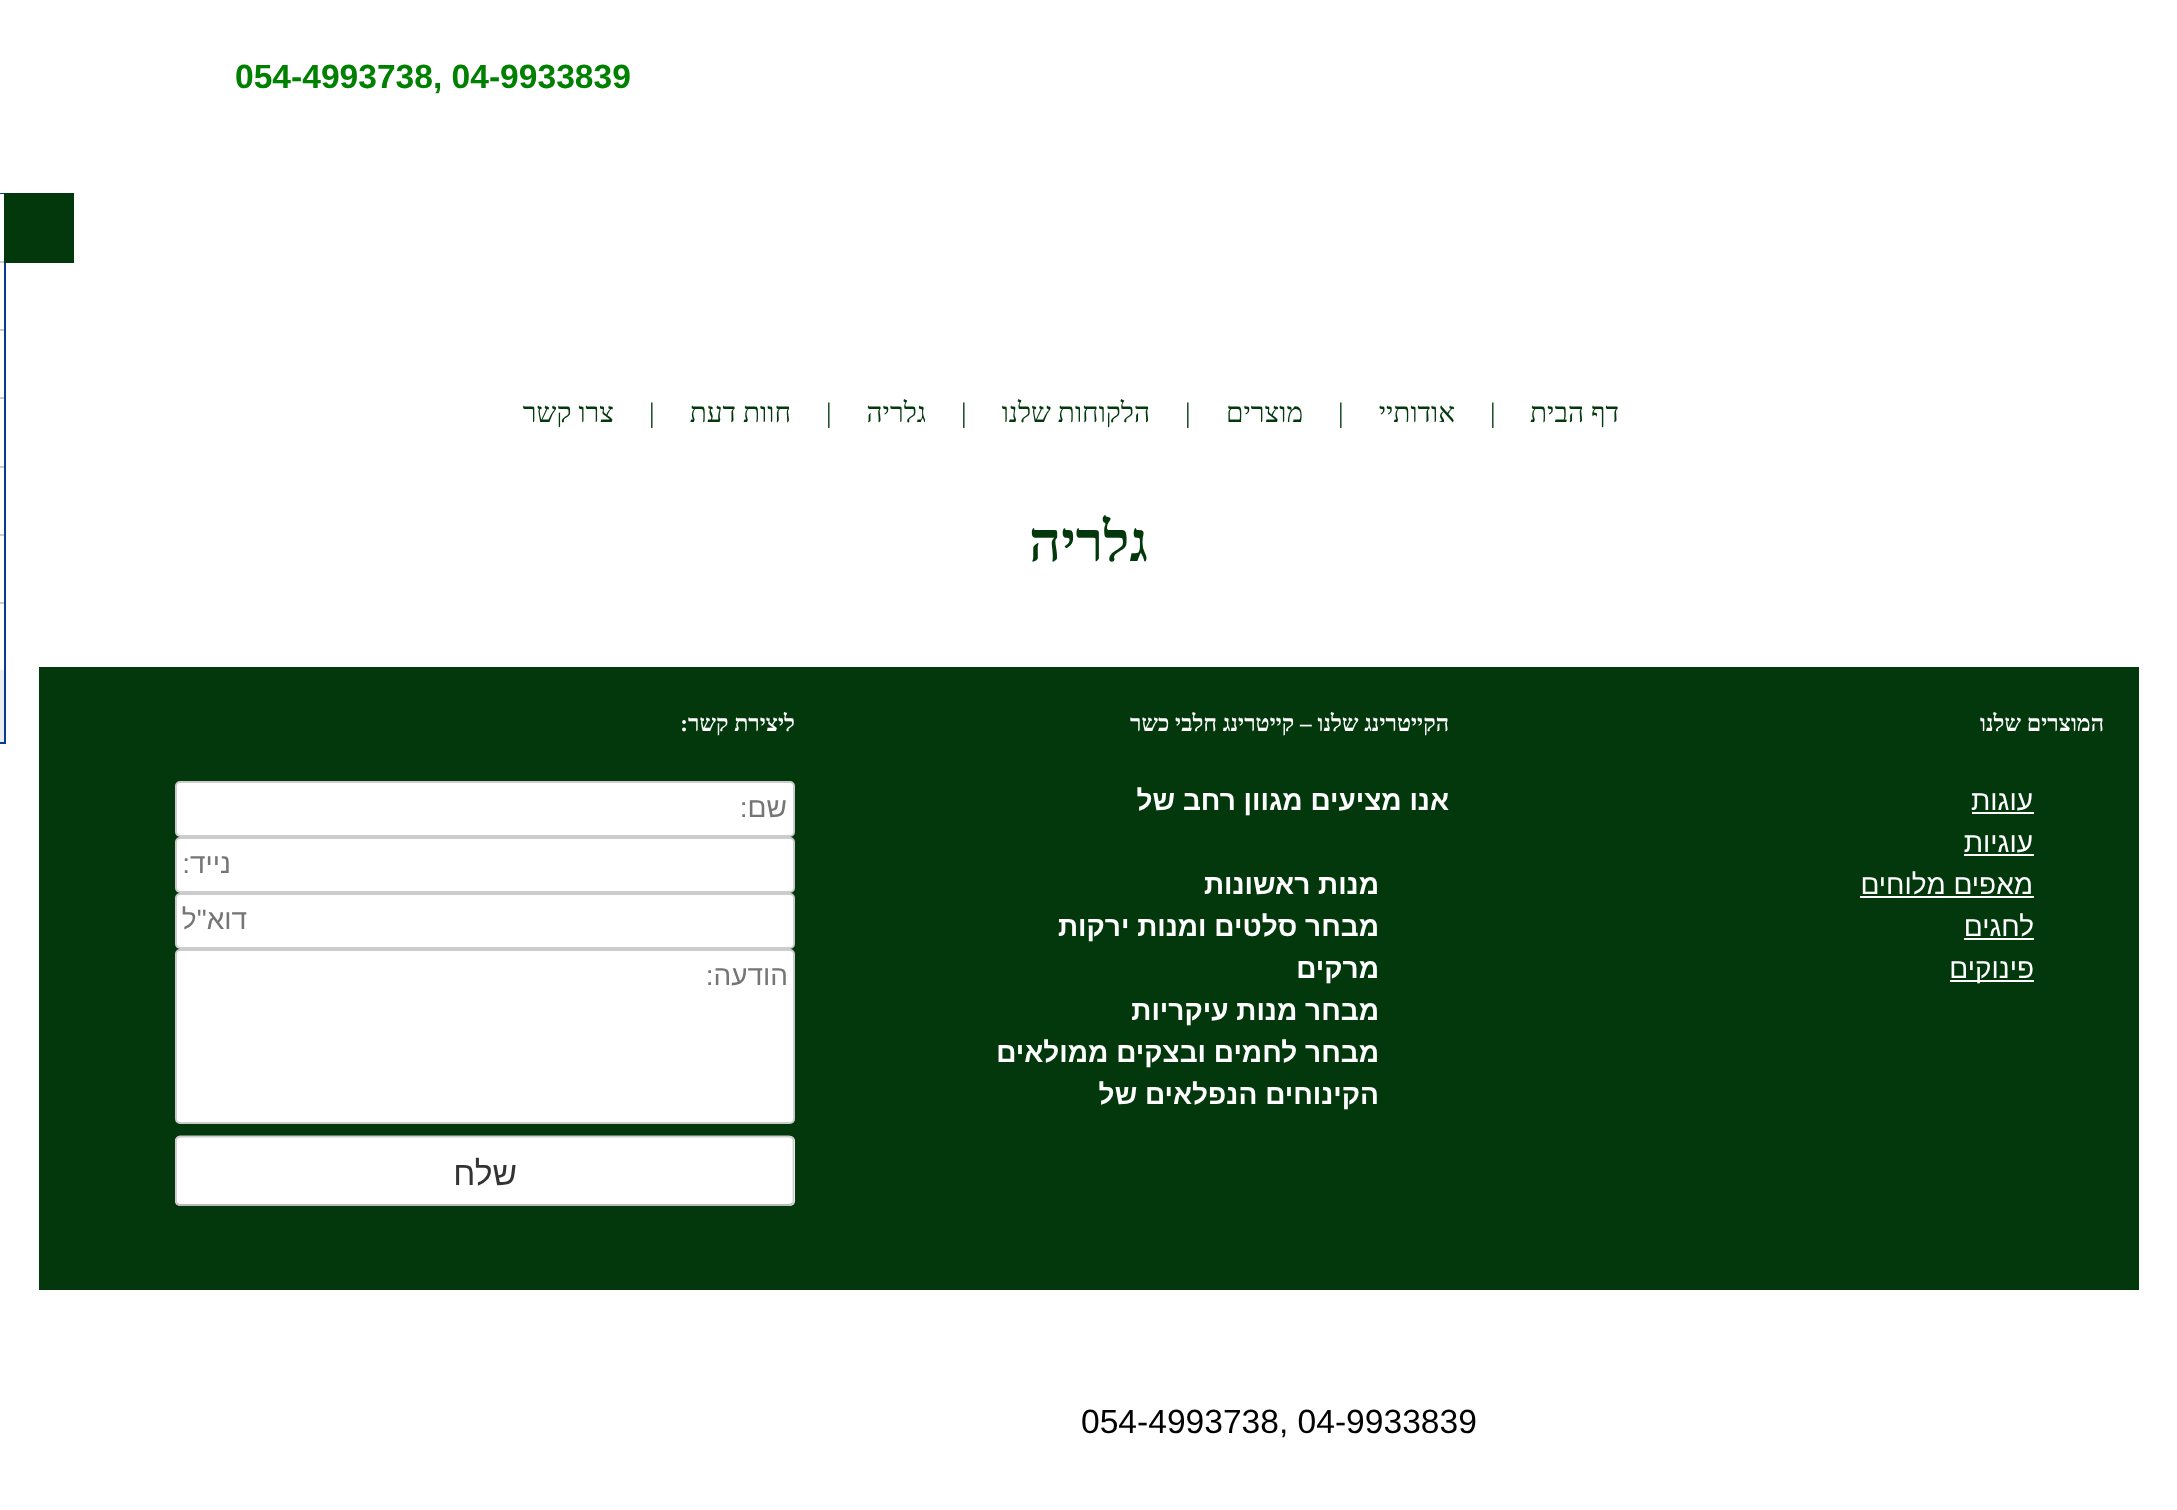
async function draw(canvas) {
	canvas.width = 2177;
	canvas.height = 1510;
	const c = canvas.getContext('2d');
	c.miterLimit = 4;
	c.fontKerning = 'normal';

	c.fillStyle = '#fff';
	c.fillRect(0, 0, 2177, 1510);
	c.font = 'bold 33.6px Liberation Sans';
	c.fillStyle = '#008000';
	c.fillText('054-4993738, 04-9933839', 235, 88);
	c.direction = 'rtl';
	c.font = '28px Liberation Serif';
	c.fillStyle = '#02380c';
	c.fillText('דף הבית', 1619, 422);
	c.direction = 'ltr';
	c.fillText('|', 1490, 422);
	c.direction = 'rtl';
	c.fillText('אודותיי', 1455, 422);
	c.direction = 'ltr';
	c.fillText('|', 1338, 422);
	c.direction = 'rtl';
	c.fillText('מוצרים', 1303, 422);
	c.direction = 'ltr';
	c.fillText('|', 1185, 422);
	c.direction = 'rtl';
	c.fillText('הלקוחות שלנו', 1150, 422);
	c.direction = 'ltr';
	c.fillText('|', 961, 422);
	c.direction = 'rtl';
	c.fillText('גלריה', 926, 422);
	c.direction = 'ltr';
	c.fillText('|', 826, 422);
	c.direction = 'rtl';
	c.fillText('חוות דעת', 791, 422);
	c.direction = 'ltr';
	c.fillText('|', 649, 422);
	c.direction = 'rtl';
	c.fillText('צרו קשר', 614, 422);
	for (const [x, y, w, h, color] of [
		[0, 193, 5, 1, '#063d8d'],
		[4, 263, 2, 481, '#063d8d'],
		[0, 742, 5, 2, '#063d8d'],
		[4, 193, 70, 70, '#02380c'],
		[0, 261, 4, 2, '#ccc'],
		[0, 329, 4, 2, '#ccc'],
		[0, 397, 4, 2, '#ccc'],
		[0, 466, 4, 2, '#ccc'],
		[0, 534, 4, 2, '#ccc'],
		[0, 602, 4, 2, '#ccc'],
		[0, 670, 4, 72, '#eaedf2'],
	]) {
		c.fillStyle = color;
		c.fillRect(x, y, w, h);
	}
	c.font = 'bold 56px Liberation Serif';
	c.fillStyle = '#02380c';
	c.fillText('גלריה', 1148, 561);
	c.fillRect(39, 667, 2100, 623);
	c.font = 'bold 23.25px Liberation Serif';
	c.fillStyle = '#fff';
	c.fillText('המוצרים שלנו', 2104, 731);
	c.font = '28px Liberation Sans';
	c.fillText('עוגות', 2033, 810);
	c.fillRect(1972, 812, 62, 2);
	c.fillText('עוגיות', 2033, 852);
	c.fillRect(1964, 854, 70, 2);
	c.fillText('מאפים מלוחים', 2033, 894);
	c.fillRect(1860, 896, 174, 2);
	c.fillText('לחגים', 2034, 936);
	c.fillRect(1964, 938, 70, 2);
	c.fillRect(1950, 980, 84, 2);
	c.fillText('פינוקים', 2034, 978);
	c.font = 'bold 23.25px Liberation Serif';
	c.fillText('הקייטרינג שלנו – קייטרינג חלבי כשר', 1449, 731);
	c.font = 'bold 28px Liberation Sans';
	for (const [text, x, y] of [
		['אנו מציעים מגוון רחב של', 1449, 810],
		['מנות ראשונות', 1379, 894],
		['מבחר סלטים ומנות ירקות', 1379, 936],
		['מרקים', 1379, 978],
		['מבחר מנות עיקריות', 1379, 1020],
		['מבחר לחמים ובצקים ממולאים', 1379, 1062],
		['הקינוחים הנפלאים של', 1379, 1104],
	]) {
		c.fillText(text, x, y);
	}
	c.font = 'bold 23.25px Liberation Serif';
	c.fillText('ליצירת קשר:', 795, 731);
	c.beginPath();
	c.roundRect(176, 782, 618, 54, 4);
	c.fill();
	c.strokeStyle = '#ccc';
	c.lineWidth = 2;
	c.stroke();
	c.font = '28px Liberation Sans';
	c.fillStyle = '#757575';
	c.fillText('שם:', 787, 817);
	c.fillStyle = '#fff';
	c.beginPath();
	c.roundRect(176, 838, 618, 54, 4);
	c.fill();
	c.stroke();
	c.fillStyle = '#757575';
	c.fillText('נייד:', 231, 873);
	c.fillStyle = '#fff';
	c.beginPath();
	c.roundRect(176, 894, 618, 54, 4);
	c.fill();
	c.stroke();
	c.fillStyle = '#757575';
	c.fillText('דוא"ל', 247, 929);
	c.fillStyle = '#fff';
	c.beginPath();
	c.roundRect(176, 950, 618, 173, 4);
	c.fill();
	c.stroke();
	c.fillStyle = '#757575';
	c.fillText('הודעה:', 788, 985);
	c.fillStyle = '#fff';
	c.beginPath();
	c.roundRect(175, 1136, 620, 70, 5);
	c.fill();
	c.beginPath();
	c.moveTo(792.5, 1203.5);
	c.bezierCurveTo(791.5, 1204.5, 790.5, 1205, 789, 1205);
	c.lineTo(180, 1205);
	c.bezierCurveTo(179, 1205, 178, 1204.5, 177, 1203.5);
	c.strokeStyle = '#bbb';
	c.lineWidth = 1.8;
	c.stroke();
	c.beginPath();
	c.moveTo(177, 1203.5);
	c.bezierCurveTo(176.5, 1203, 176, 1201.5, 176, 1200.5);
	c.lineTo(176, 1141);
	c.bezierCurveTo(176, 1140, 176.5, 1138.5, 177, 1138);
	c.bezierCurveTo(178, 1137, 179, 1136.5, 180, 1136.5);
	c.lineTo(789, 1136.5);
	c.bezierCurveTo(790.5, 1136.5, 791.5, 1137, 792.5, 1138);
	c.bezierCurveTo(793, 1138.5, 793.5, 1140, 793.5, 1141);
	c.lineTo(793.5, 1200.5);
	c.bezierCurveTo(793.5, 1201.5, 793, 1203, 792.5, 1203.5);
	c.strokeStyle = '#ccc';
	c.stroke();
	c.font = '33.6px Liberation Sans';
	c.fillStyle = '#333';
	c.fillText('שלח', 517, 1185);
	c.direction = 'ltr';
	c.fillStyle = '#000';
	c.fillText('054-4993738, 04-9933839', 1081, 1433);
}

draw(document.querySelector('canvas'));
